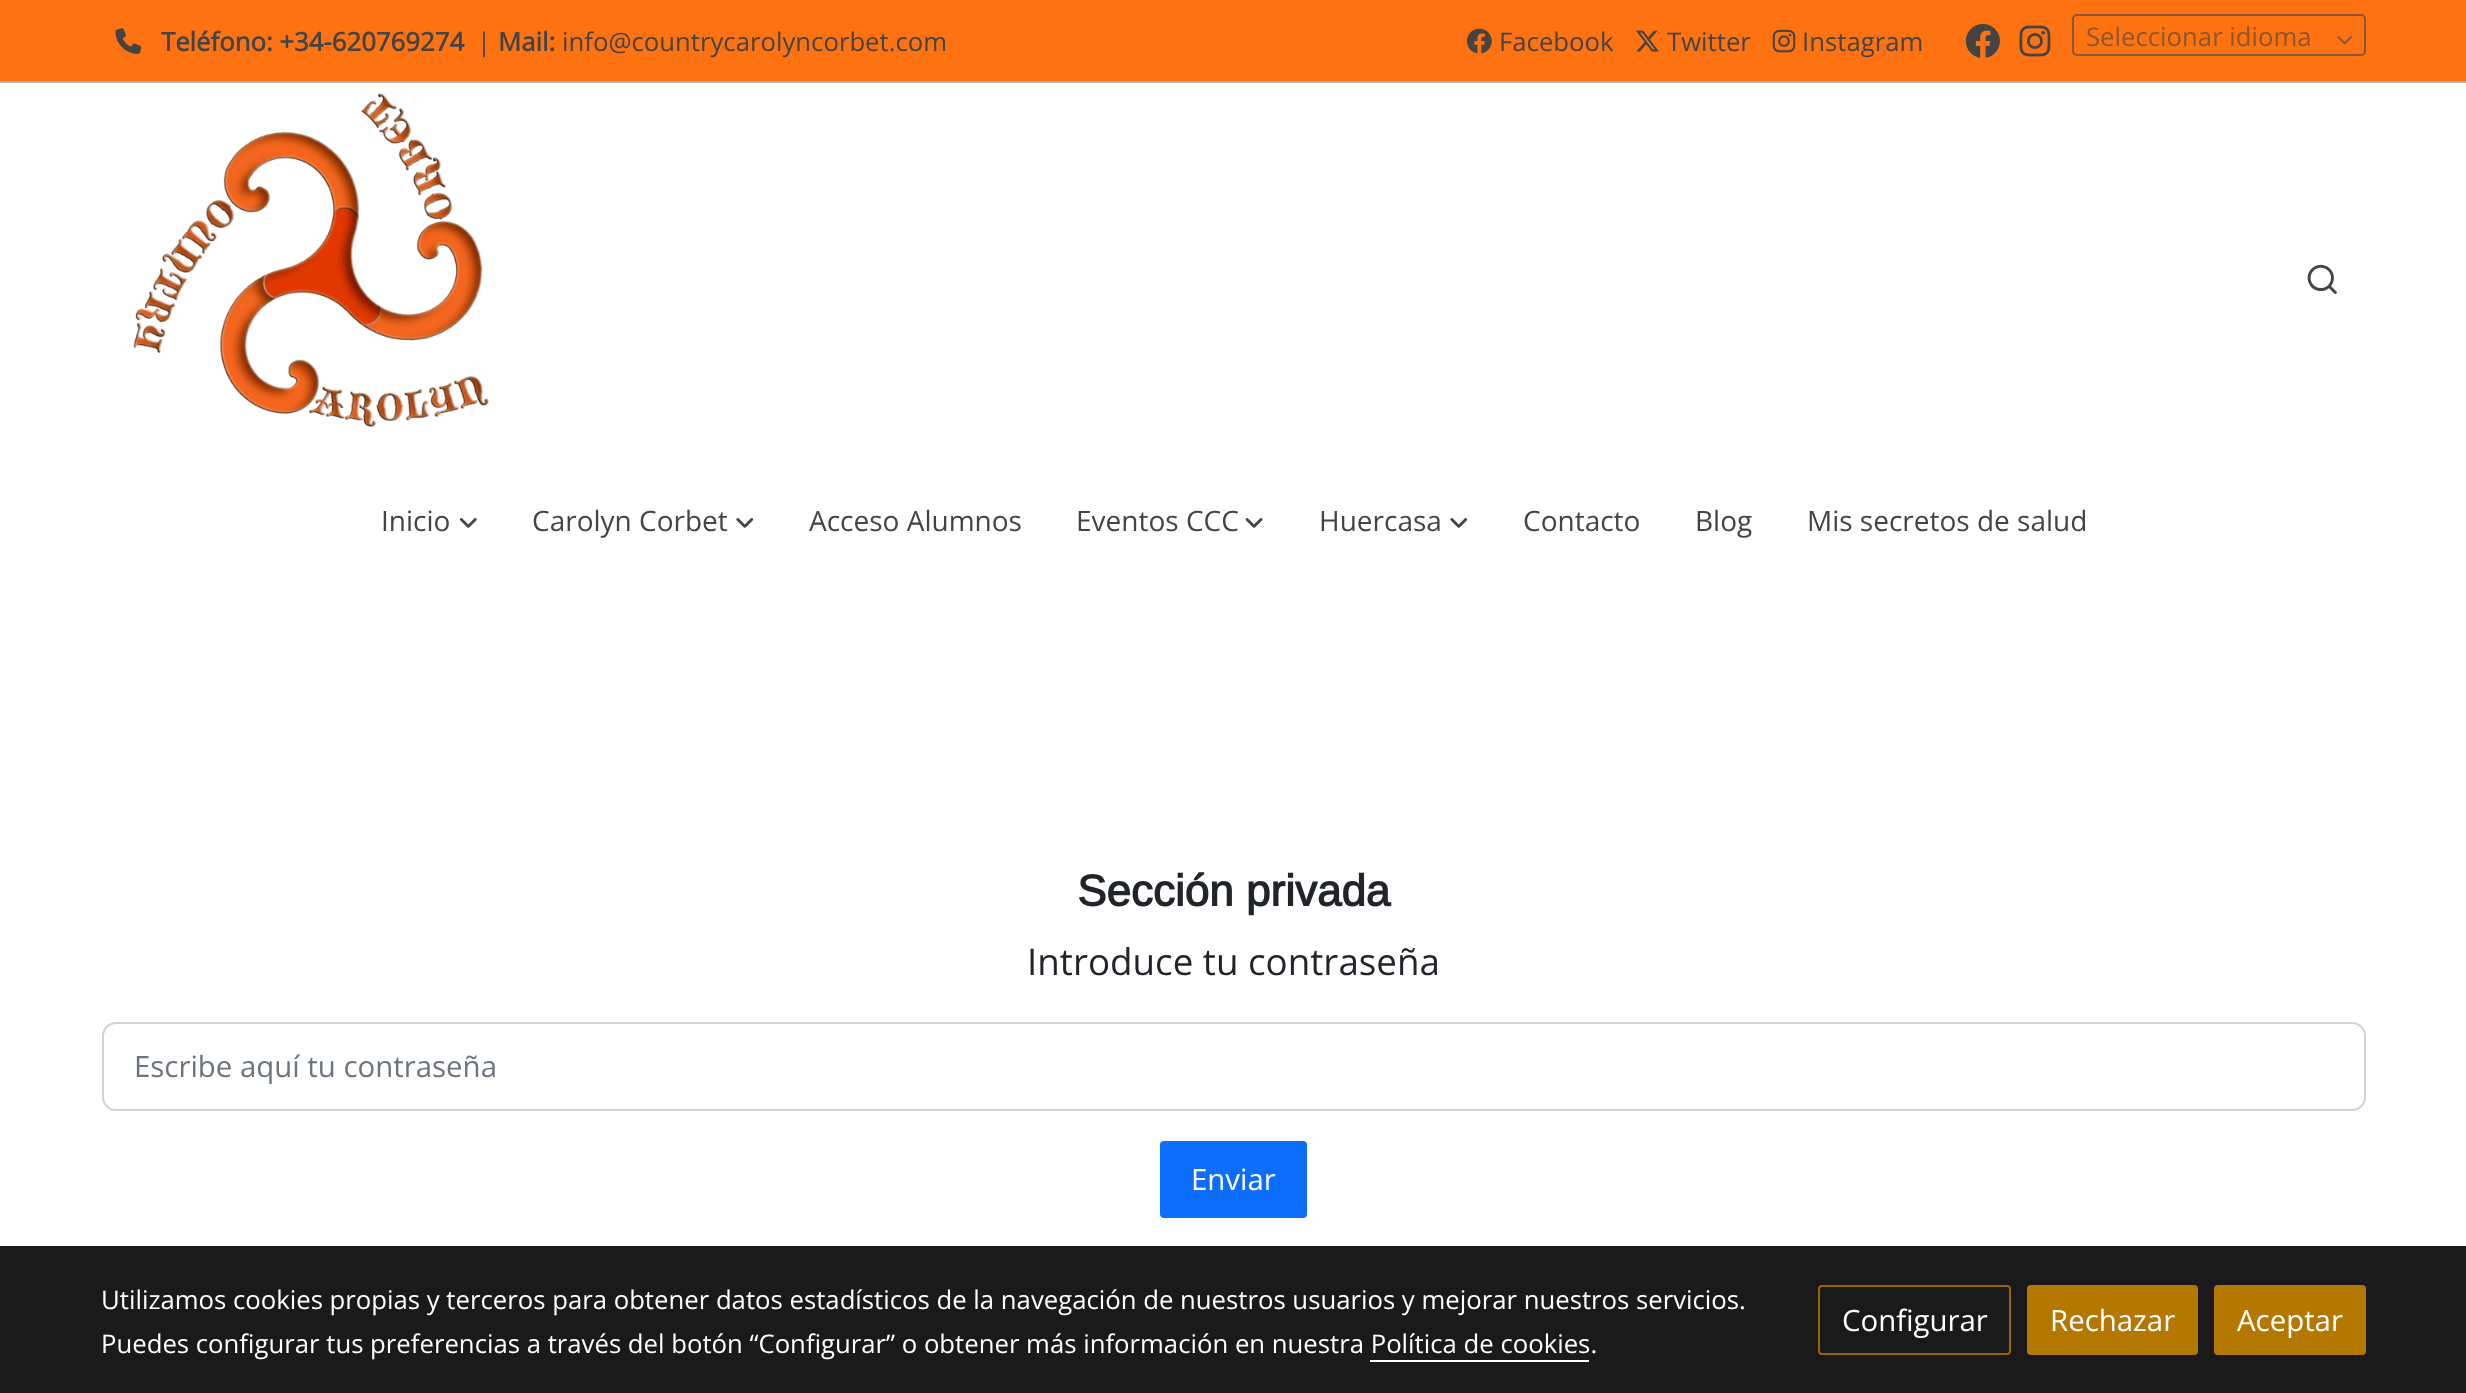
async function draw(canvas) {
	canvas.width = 2466;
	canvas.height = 1393;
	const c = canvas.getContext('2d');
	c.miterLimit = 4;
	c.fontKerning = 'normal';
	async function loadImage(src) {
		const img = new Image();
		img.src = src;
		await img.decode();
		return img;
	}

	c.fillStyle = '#fff';
	c.fillRect(0, 0, 2466, 1393);
	c.fillStyle = '#adb5bd';
	c.fillRect(0, 81, 2466, 2);
	c.fillStyle = '#fe7212';
	c.fillRect(0, 0, 2466, 81);
	c.drawImage(await loadImage('img1.png'), 115, 28, 27, 26);
	c.font = 'bold 25.72px Open Sans';
	c.fillStyle = '#444';
	c.fillText('Teléfono: +34-620769274', 161, 51);
	c.font = '25.72px Open Sans';
	c.fillText('|', 477, 51);
	c.font = 'bold 25.72px Open Sans';
	c.fillText('Mail:', 498, 51);
	c.font = '25.72px Open Sans';
	c.fillText('info@countrycarolyncorbet.com', 562, 51);
	c.drawImage(await loadImage('img2.png'), 1466, 28, 26, 26);
	c.fillText('Facebook', 1499, 51);
	c.drawImage(await loadImage('img3.png'), 1636, 30, 23, 22);
	c.fillText('Twitter', 1667, 51);
	c.drawImage(await loadImage('img4.png'), 1772, 29, 24, 24);
	c.fillText('Instagram', 1802, 51);
	c.drawImage(await loadImage('img5.png'), 1965, 23, 35, 35);
	c.drawImage(await loadImage('img6.png'), 2019, 25, 32, 32);
	c.beginPath();
	c.roundRect(2073, 15, 292, 40, 4);
	c.strokeStyle = '#8e5630';
	c.lineWidth = 2;
	c.stroke();
	c.fillStyle = '#8e5630';
	c.fillText('Seleccionar idioma', 2086, 46);
	c.drawImage(await loadImage('img7.png'), 2337, 36, 15, 9);
	c.drawImage(await loadImage('img8.png'), 133, 93, 356, 334);
	c.drawImage(await loadImage('img9.png'), 2307, 264, 30, 30);
	c.font = '28px Open Sans';
	c.fillStyle = '#444';
	c.fillText('Inicio', 381, 531);
	c.drawImage(await loadImage('img10.png'), 459, 518, 18, 10);
	c.fillText('Carolyn Corbet', 532, 531);
	c.drawImage(await loadImage('img11.png'), 736, 518, 18, 10);
	c.fillText('Acceso Alumnos', 809, 531);
	c.fillText('Eventos CCC', 1076, 531);
	c.drawImage(await loadImage('img12.png'), 1245, 518, 18, 10);
	c.fillText('Huercasa', 1319, 531);
	c.drawImage(await loadImage('img11.png'), 1450, 518, 18, 10);
	for (const [text, x, y] of [
		['Contacto', 1523, 531],
		['Blog', 1695, 531],
		['Mis secretos de salud', 1807, 531],
	]) {
		c.fillText(text, x, y);
	}
	c.font = 'bold 44px Arimo';
	c.fillStyle = '#212529';
	c.fillText('Sección privada', 1077, 906);
	c.font = '36.75px Open Sans';
	c.fillText('Introduce tu contraseña', 1027, 975);
	c.beginPath();
	c.roundRect(103, 1023, 2262, 87, 13);
	c.strokeStyle = '#ced4da';
	c.stroke();
	c.font = '29.4px Open Sans';
	c.fillStyle = '#6c757d';
	c.fillText('Escribe aquí tu contraseña', 134, 1077);
	c.fillStyle = '#0d6efd';
	c.beginPath();
	c.roundRect(1161, 1142, 145, 75, 3);
	c.fill();
	c.strokeStyle = '#0d6efd';
	c.stroke();
	c.fillStyle = '#fff';
	c.fillText('Enviar', 1191, 1190);
	c.fillStyle = '#1a1a1a';
	c.fillRect(0, 1246, 2466, 147);
	c.font = '25.72px Open Sans';
	c.fillStyle = '#fff';
	c.fillText('Utilizamos cookies propias y terceros para obtener datos estadísticos de la navegación de nuestros usuarios y mejorar nuestros servicios.', 101, 1309);
	c.fillText('Puedes configurar tus preferencias a través del botón “Configurar” o obtener más información en nuestra Política de cookies.', 101, 1353);
	c.fillRect(1370, 1360, 219, 2);
	c.beginPath();
	c.roundRect(1819, 1286, 191, 68, 3);
	c.strokeStyle = '#9a6600';
	c.stroke();
	c.font = '29.4px Open Sans';
	c.fillText('Configurar', 1842, 1331);
	c.fillStyle = '#b47700';
	c.beginPath();
	c.roundRect(2028, 1286, 169, 68, 3);
	c.fill();
	c.strokeStyle = '#b47700';
	c.stroke();
	c.fillStyle = '#fff';
	c.fillText('Rechazar', 2050, 1331);
	c.fillStyle = '#b47700';
	c.beginPath();
	c.roundRect(2215, 1286, 150, 68, 3);
	c.fill();
	c.stroke();
	c.fillStyle = '#fff';
	c.fillText('Aceptar', 2237, 1331);
}

draw(document.querySelector('canvas'));
